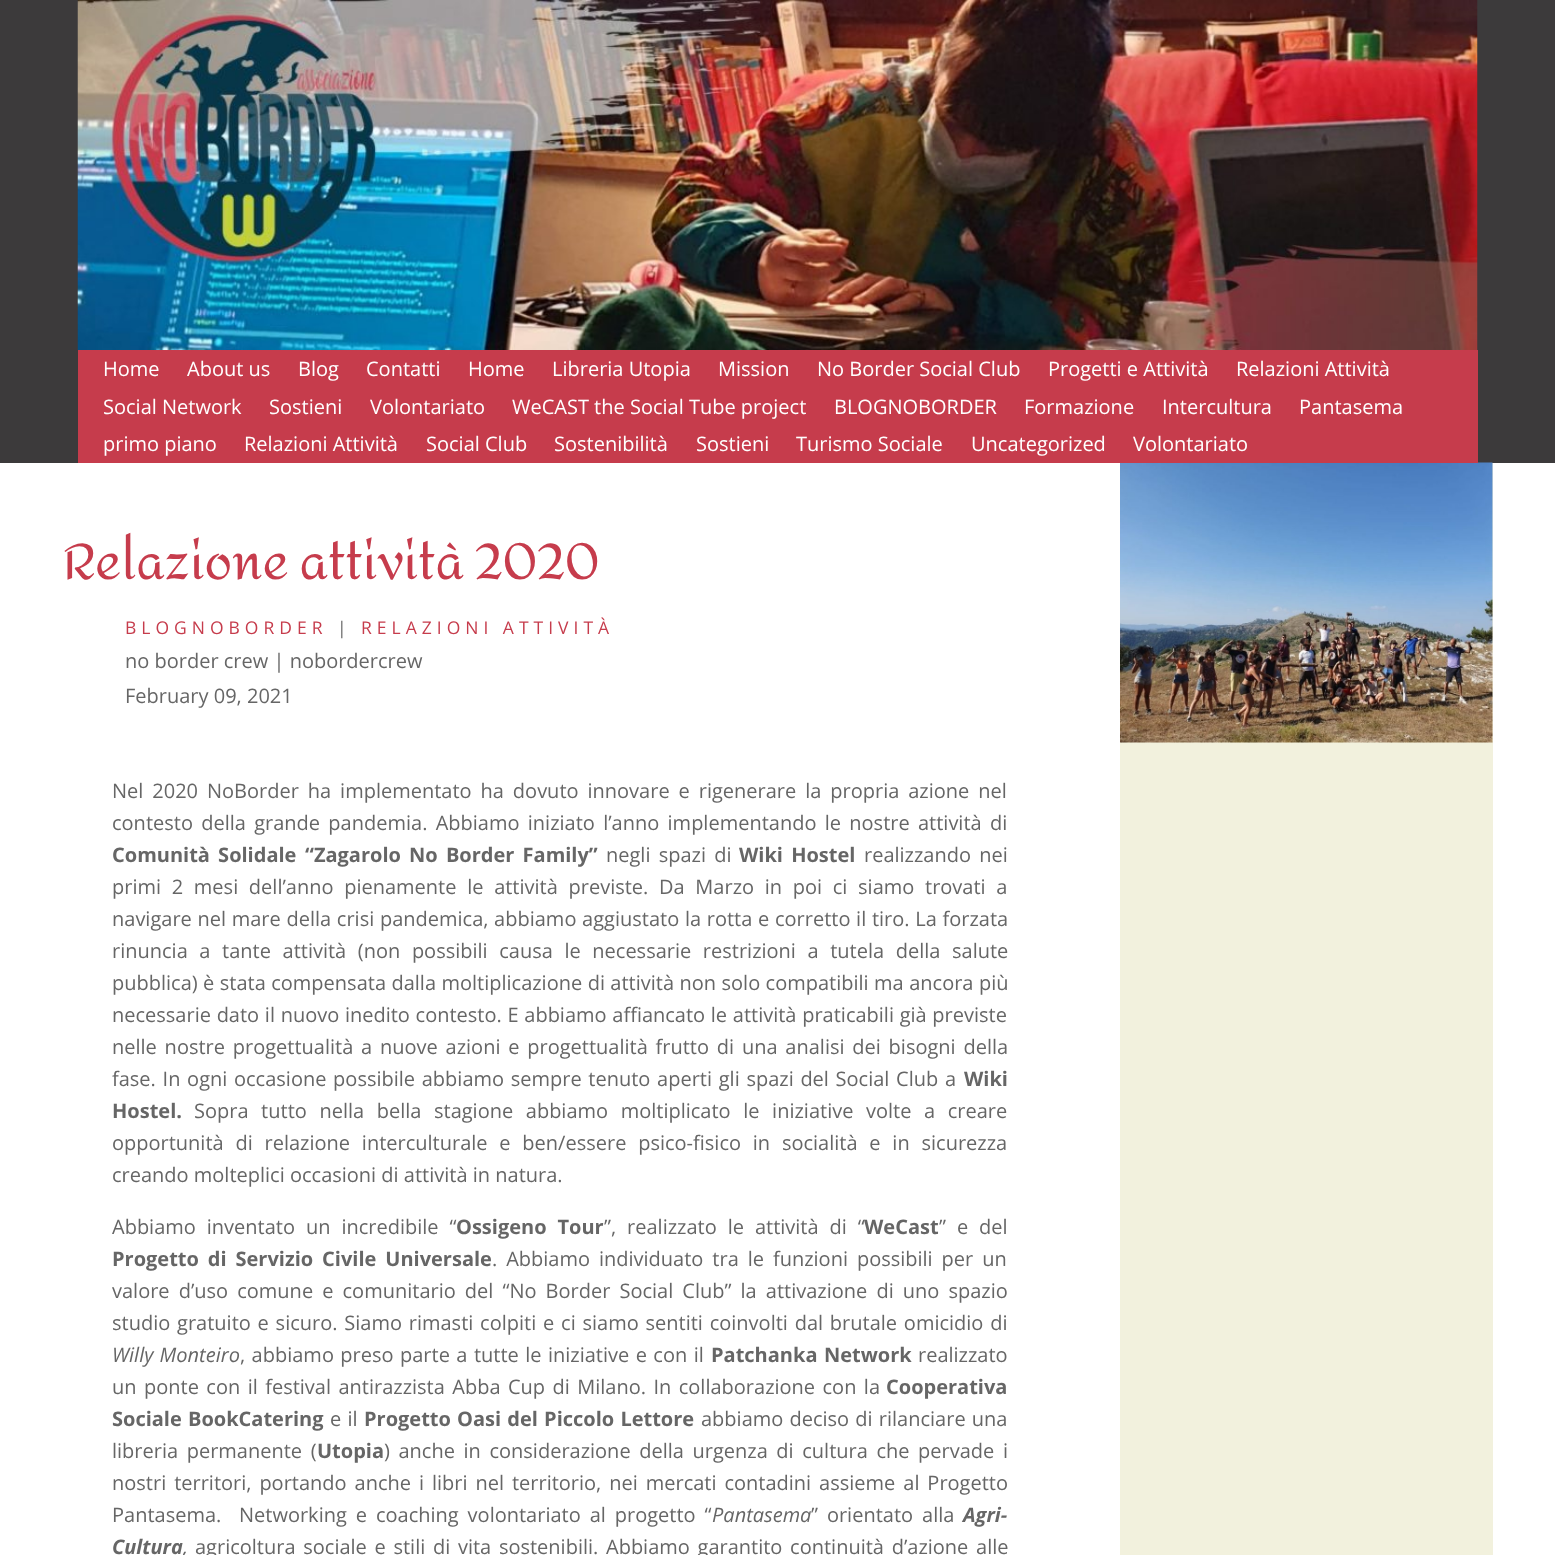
async function draw(canvas) {
	canvas.width = 1555;
	canvas.height = 1555;
	const c = canvas.getContext('2d');
	c.miterLimit = 4;
	c.fontKerning = 'normal';
	async function loadImage(src) {
		const img = new Image();
		img.src = src;
		await img.decode();
		return img;
	}

	c.fillStyle = '#3c3a3b';
	c.fillRect(0, 0, 1555, 1555);
	c.drawImage(await loadImage('img1.png'), 77, 0, 1401, 350);
	c.fillStyle = '#fff';
	c.fillRect(0, 463, 1555, 1092);
	c.fillStyle = '#f2f1dd';
	c.fillRect(1120, 463, 373, 1092);
	c.drawImage(await loadImage('img2.png'), 1120, 462, 373, 281);
	c.fillStyle = '#c63c4c';
	c.fillRect(78, 350, 1400, 113);
	c.font = '20px Open Sans';
	c.fillStyle = '#fff';
	for (const [text, x, y] of [
		['Home', 103, 376],
		['About us', 187, 376],
		['Blog', 298, 376],
		['Contatti', 366, 376],
		['Home', 468, 376],
		['Libreria Utopia', 552, 376],
		['Mission', 718, 376],
		['No Border Social Club', 817, 376],
		['Progetti e Attività', 1048, 376],
		['Relazioni Attività', 1236, 376],
		['Social Network', 103, 414],
		['Sostieni', 269, 414],
		['Volontariato', 370, 414],
		['WeCAST the Social Tube project', 512, 414],
		['BLOGNOBORDER', 834, 414],
		['Formazione', 1024, 414],
		['Intercultura', 1162, 414],
		['Pantasema', 1299, 414],
		['primo piano', 103, 451],
		['Relazioni Attività', 244, 451],
		['Social Club', 426, 451],
		['Sostenibilità', 554, 451],
		['Sostieni', 696, 451],
		['Turismo Sociale', 796, 451],
		['Uncategorized', 971, 451],
		['Volontariato', 1133, 451],
	]) {
		c.fillText(text, x, y);
	}
	c.font = '50px Amita';
	c.fillStyle = '#c63c4c';
	c.fillText('Relazione attività 2020', 63, 579);
	c.letterSpacing = '5px';
	c.font = '17.5px Open Sans';
	c.fillText('BLOGNOBORDER', 125, 634);
	c.fillStyle = '#666';
	c.fillText('|', 337, 634);
	c.fillStyle = '#c63c4c';
	c.fillText('RELAZIONI ATTIVITÀ', 361, 634);
	c.letterSpacing = '0px';
	c.font = '20px Open Sans';
	c.fillStyle = '#666';
	c.fillText('no border crew | nobordercrew', 125, 668);
	c.fillText('February 09, 2021', 125, 703);
	c.wordSpacing = '3.75px';
	c.fillText('Nel 2020 NoBorder ha implementato ha dovuto innovare e rigenerare la propria azione nel', 112, 798);
	c.wordSpacing = '3.1px';
	c.fillText('contesto della grande pandemia. Abbiamo iniziato l’anno implementando le nostre attività di', 112, 830);
	c.wordSpacing = '3px';
	c.font = 'bold 20px Open Sans';
	c.fillText('Comunità Solidale', 112, 862);
	c.fillText('“Zagarolo No Border Family”', 305, 862);
	c.font = '20px Open Sans';
	c.fillText('negli spazi di', 606, 862);
	c.font = 'bold 20px Open Sans';
	c.fillText('Wiki Hostel', 739, 862);
	c.font = '20px Open Sans';
	c.fillText('realizzando nei', 864, 862);
	c.wordSpacing = '5.5px';
	c.fillText('primi 2 mesi dell’anno pienamente le attività previste. Da Marzo in poi ci siamo trovati a', 112, 894);
	c.wordSpacing = '0.5px';
	c.fillText('navigare nel mare della crisi pandemica, abbiamo aggiustato la rotta e corretto il tiro. La forzata', 112, 926);
	c.wordSpacing = '6.4px';
	c.fillText('rinuncia a tante attività (non possibili causa le necessarie restrizioni a tutela della salute', 112, 958);
	c.wordSpacing = '0.25px';
	c.fillText('pubblica) è stata compensata dalla moltiplicazione di attività non solo compatibili ma ancora più', 112, 990);
	c.wordSpacing = '0.5px';
	c.fillText('necessarie dato il nuovo inedito contesto. E abbiamo affiancato le attività praticabili già previste', 112, 1022);
	c.wordSpacing = '2.6px';
	c.fillText('nelle nostre progettualità a nuove azioni e progettualità frutto di una analisi dei bisogni della', 112, 1054);
	c.wordSpacing = '1.5px';
	c.fillText('fase. In ogni occasione possibile abbiamo sempre tenuto aperti gli spazi del Social Club a', 112, 1086);
	c.wordSpacing = '0px';
	c.font = 'bold 20px Open Sans';
	c.fillText('Wiki', 964, 1086);
	c.fillText('Hostel.', 112, 1118);
	c.wordSpacing = '7.4px';
	c.font = '20px Open Sans';
	c.fillText('Sopra tutto nella bella stagione abbiamo moltiplicato le iniziative volte a creare', 194, 1118);
	c.wordSpacing = '6.6px';
	c.fillText('opportunità di relazione interculturale e ben/essere psico-fisico in socialità e in sicurezza', 112, 1150);
	c.wordSpacing = '0px';
	c.fillText('creando molteplici occasioni di attività in natura.', 112, 1182);
	c.wordSpacing = '5.75px';
	c.fillText('Abbiamo inventato un incredibile “', 112, 1234);
	c.font = 'bold 20px Open Sans';
	c.fillText('Ossigeno Tour', 456, 1234);
	c.font = '20px Open Sans';
	c.fillText('”, realizzato le attività di “', 604, 1234);
	c.wordSpacing = '0px';
	c.font = 'bold 20px Open Sans';
	c.fillText('WeCast', 864, 1234);
	c.wordSpacing = '5.75px';
	c.font = '20px Open Sans';
	c.fillText('” e del', 939, 1234);
	c.wordSpacing = '3.75px';
	c.font = 'bold 20px Open Sans';
	c.fillText('Progetto di Servizio Civile Universale', 112, 1266);
	c.font = '20px Open Sans';
	c.fillText('. Abbiamo individuato tra le funzioni possibili per un', 492, 1266);
	c.wordSpacing = '3.9px';
	c.fillText('valore d’uso comune e comunitario del “No Border Social Club” la attivazione di uno spazio', 112, 1298);
	c.wordSpacing = '1.6px';
	c.fillText('studio gratuito e sicuro. Siamo rimasti colpiti e ci siamo sentiti coinvolti dal brutale omicidio di', 112, 1330);
	c.wordSpacing = '1px';
	c.font = 'italic 20px Open Sans';
	c.fillText('Willy Monteiro', 112, 1362);
	c.wordSpacing = '1.25px';
	c.font = '20px Open Sans';
	c.fillText(', abbiamo preso parte a tutte le iniziative e con il', 240, 1362);
	c.font = 'bold 20px Open Sans';
	c.fillText('Patchanka Network', 711, 1362);
	c.wordSpacing = '0px';
	c.font = '20px Open Sans';
	c.fillText('realizzato', 918, 1362);
	c.wordSpacing = '2.25px';
	c.fillText('un ponte con il festival antirazzista Abba Cup di Milano. In collaborazione con la', 112, 1394);
	c.wordSpacing = '0px';
	c.font = 'bold 20px Open Sans';
	c.fillText('Cooperativa', 886, 1394);
	c.wordSpacing = '1px';
	c.fillText('Sociale BookCatering', 112, 1426);
	c.font = '20px Open Sans';
	c.fillText('e il', 330, 1426);
	c.font = 'bold 20px Open Sans';
	c.fillText('Progetto Oasi del Piccolo Lettore', 364, 1426);
	c.font = '20px Open Sans';
	c.fillText('abbiamo deciso di rilanciare una', 701, 1426);
	c.wordSpacing = '3.4px';
	c.fillText('libreria permanente (', 112, 1458);
	c.wordSpacing = '0px';
	c.font = 'bold 20px Open Sans';
	c.fillText('Utopia', 317, 1458);
	c.wordSpacing = '3.4px';
	c.font = '20px Open Sans';
	c.fillText(') anche in considerazione della urgenza di cultura che pervade i', 384, 1458);
	c.wordSpacing = '2.75px';
	c.fillText('nostri territori, portando anche i libri nel territorio, nei mercati contadini assieme al Progetto', 112, 1490);
	c.wordSpacing = '0px';
	c.fillText('Pantasema.', 112, 1522);
	c.wordSpacing = '3.75px';
	c.fillText('Networking e coaching volontariato al progetto “', 239, 1522);
	c.wordSpacing = '0px';
	c.font = 'italic 20px Open Sans';
	c.fillText('Pantasema', 712, 1522);
	c.wordSpacing = '3.75px';
	c.font = '20px Open Sans';
	c.fillText('” orientato alla', 811, 1522);
	c.wordSpacing = '0px';
	c.font = 'italic bold 20px Open Sans';
	c.fillText('Agri-', 963, 1522);
	c.fillText('Cultura', 112, 1554);
	c.font = 'italic 20px Open Sans';
	c.fillText(',', 183, 1554);
	c.wordSpacing = '2.5px';
	c.font = '20px Open Sans';
	c.fillText('agricoltura sociale e stili di vita sostenibili.', 195, 1554);
	c.fillText('Abbiamo garantito continuità d’azione alle', 606, 1554);
}

draw(document.querySelector('canvas'));
